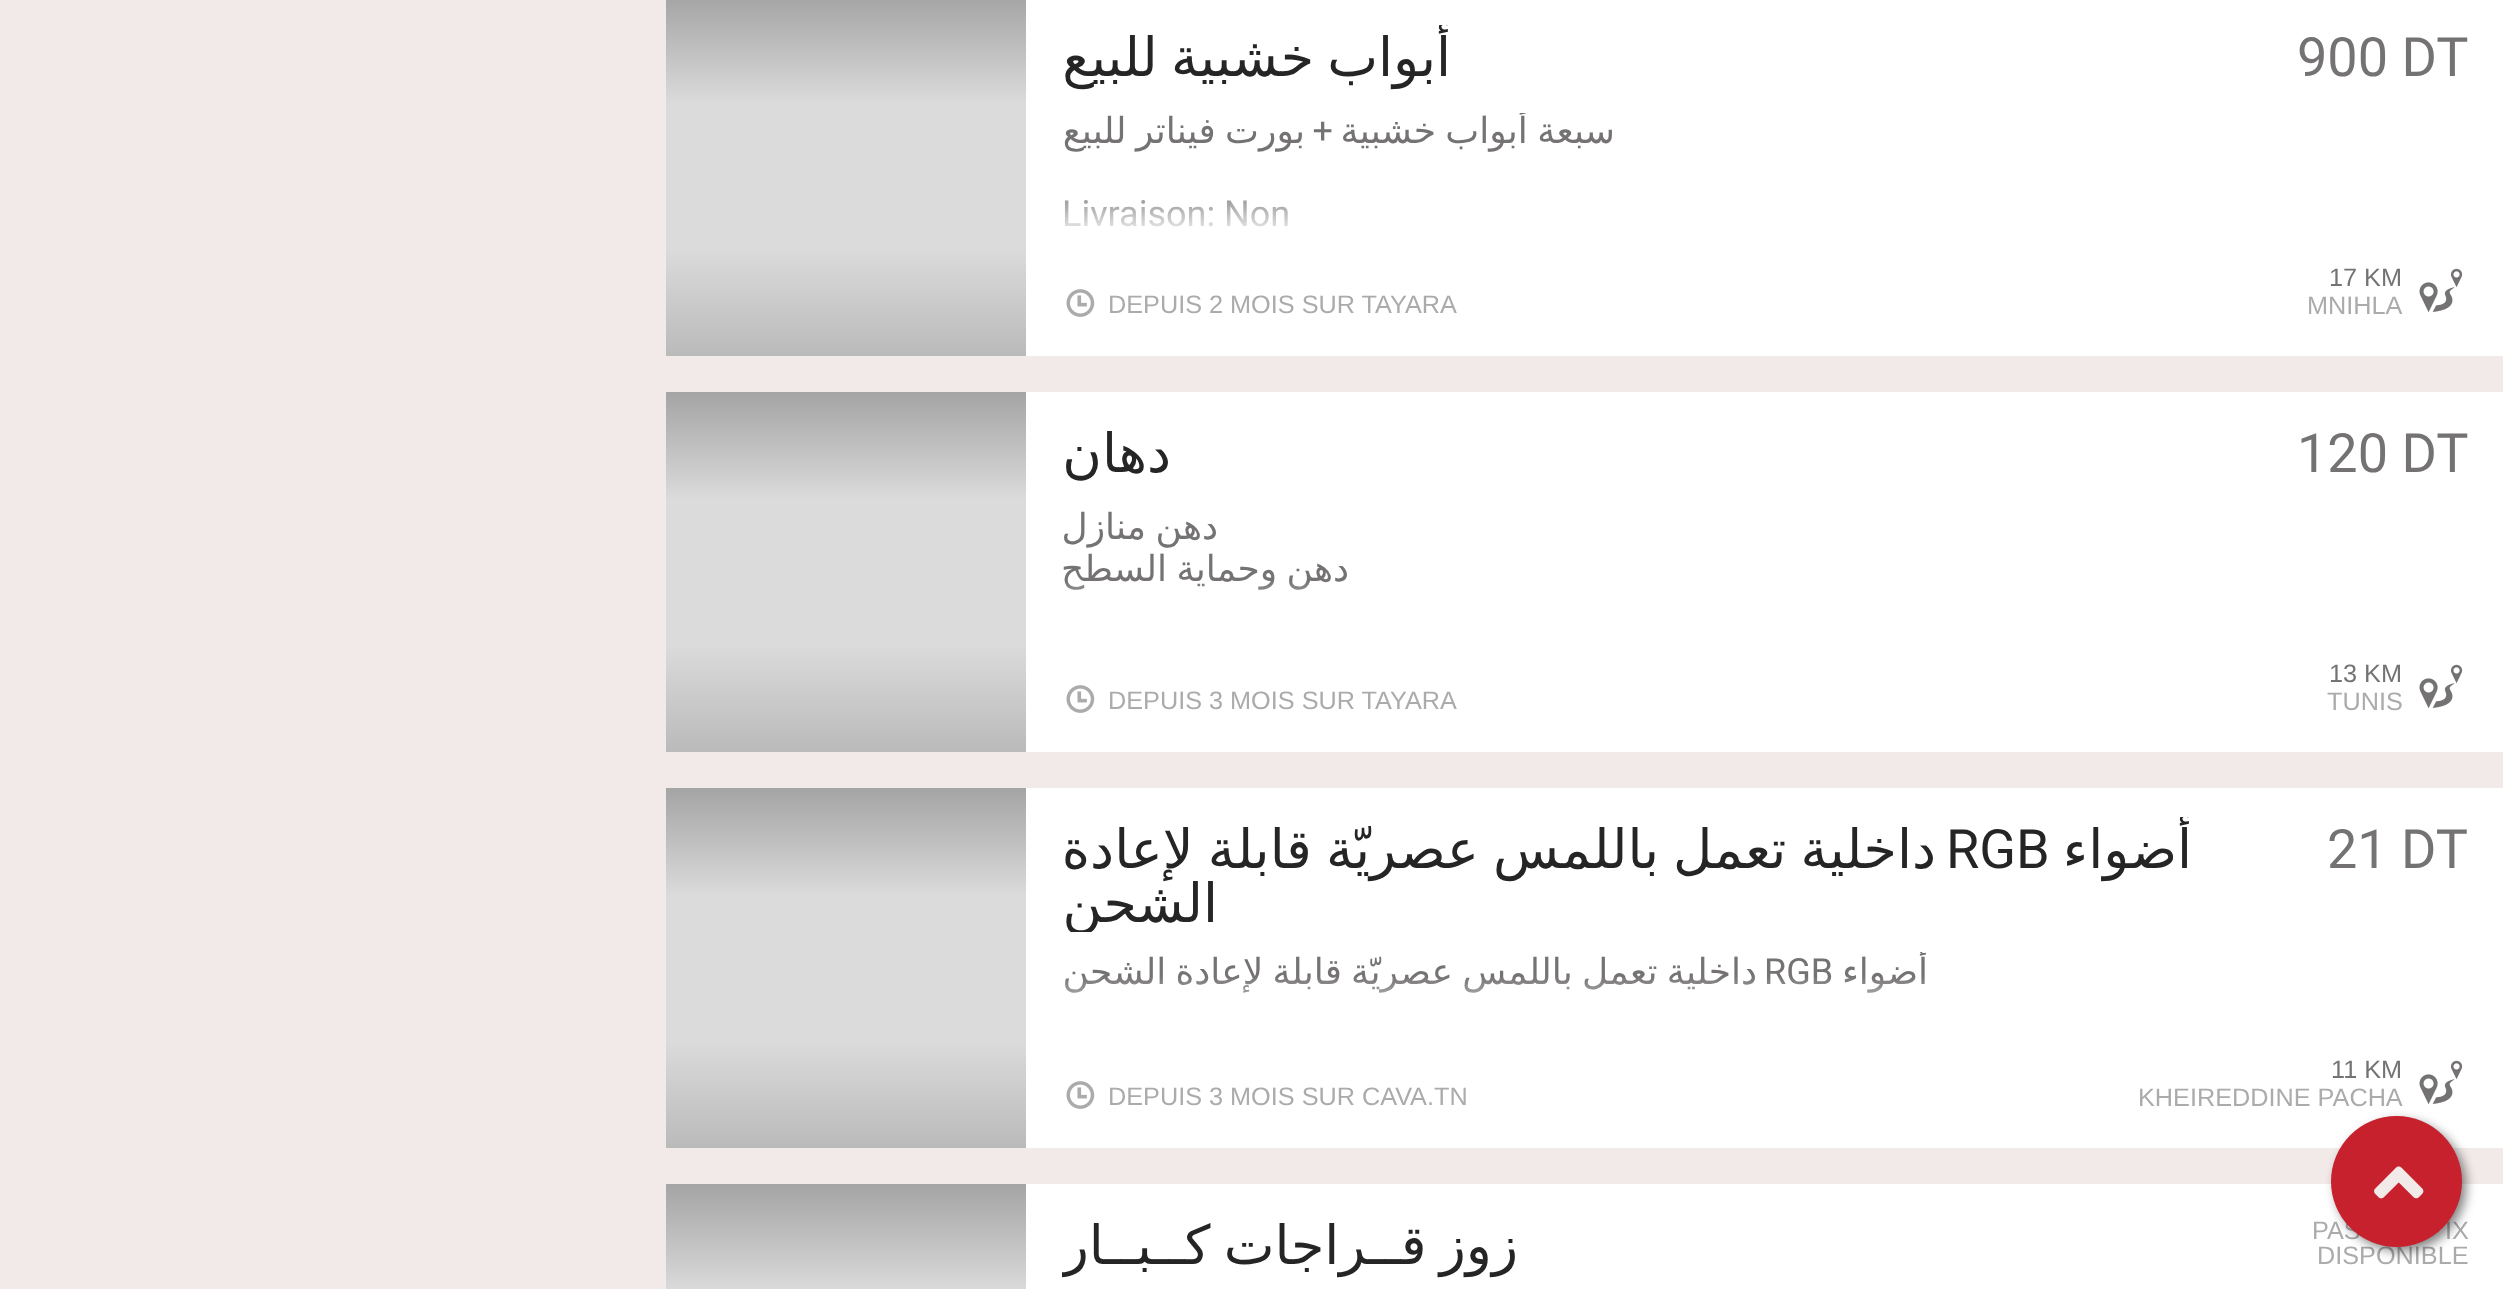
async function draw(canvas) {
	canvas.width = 2503;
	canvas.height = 1289;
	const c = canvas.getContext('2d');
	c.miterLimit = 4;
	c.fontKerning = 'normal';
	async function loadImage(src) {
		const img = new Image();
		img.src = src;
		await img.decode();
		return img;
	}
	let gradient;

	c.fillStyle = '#f2e9e9';
	c.fillRect(0, 0, 2503, 1289);
	c.fillStyle = '#fff';
	c.fillRect(1026, 0, 1477, 356);
	c.font = '54px Roboto';
	c.fillStyle = '#757273';
	c.fillText('900 DT', 2297, 76);
	c.save();
	c.beginPath();
	c.rect(1062, 25, 1181, 65);
	c.clip();
	c.wordSpacing = '-4px';
	c.direction = 'rtl';
	c.font = '54px DejaVu Sans';
	c.fillStyle = '#262525';
	c.fillText('أبواب خشبية للبيع', 1451, 76);
	c.restore();
	c.save();
	c.beginPath();
	c.rect(1062, 113, 1118, 123);
	c.clip();
	c.wordSpacing = '-2px';
	c.direction = 'rtl';
	c.font = '36px DejaVu Sans';
	c.fillText('سبعة أبواب خشبية', 1615, 143);
	c.restore();
	c.direction = 'rtl';
	c.font = '36px Roboto';
	c.fillText('+', 1333, 143);
	c.wordSpacing = '-2px';
	c.font = '36px DejaVu Sans';
	c.fillText('بورت فيناتر للبيع', 1305, 143);
	c.wordSpacing = '0px';
	c.direction = 'ltr';
	c.font = '36px Roboto';
	c.fillText('Livraison: Non', 1062, 226);
	gradient = c.createLinearGradient(1621, 184, 1621, 239);
	gradient.addColorStop(0, '#ffffff00');
	gradient.addColorStop(1, '#fff');
	c.fillStyle = gradient;
	c.fillRect(1064, 200, 224, 27);
	c.drawImage(await loadImage('img1.png'), 2419, 268, 44, 45);
	c.font = '25.25px Liberation Sans';
	c.fillStyle = '#757273';
	c.fillText('17 KM', 2329, 286);
	c.fillStyle = '#ababab';
	c.fillText('MNIHLA', 2307, 314);
	c.fillText('DEPUIS 2 MOIS SUR TAYARA', 1108, 313);
	c.drawImage(await loadImage('img2.png'), 1066, 289, 29, 28);
	c.fillStyle = '#dbdbdb';
	c.fillRect(666, 104, 360, 144);
	gradient = c.createLinearGradient(846, -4.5, 846, 104);
	gradient.addColorStop(0, '#a4a4a4');
	gradient.addColorStop(1, '#dbdbdb');
	c.fillStyle = gradient;
	c.fillRect(666, 0, 360, 104);
	gradient = c.createLinearGradient(846, 356, 846, 248);
	gradient.addColorStop(0, '#bababa');
	gradient.addColorStop(1, '#dbdbdb');
	c.fillStyle = gradient;
	c.fillRect(666, 248, 360, 108);
	c.fillStyle = '#fff';
	c.fillRect(1026, 392, 1477, 360);
	c.font = '54px Roboto';
	c.fillStyle = '#757273';
	c.fillText('120 DT', 2297, 472);
	c.direction = 'rtl';
	c.font = '54px DejaVu Sans';
	c.fillStyle = '#262525';
	c.fillText('دهان', 1171, 472);
	c.wordSpacing = '-2px';
	c.font = '36px DejaVu Sans';
	c.fillStyle = '#757273';
	c.fillText('دهن منازل', 1218, 539);
	c.fillText('دهن وحماية السطح', 1349, 581);
	gradient = c.createLinearGradient(1621, 580, 1621, 635);
	gradient.addColorStop(0, '#ffffff00');
	gradient.addColorStop(1, '#fff');
	c.fillStyle = gradient;
	c.fillRect(1066, 581, 267, 9);
	c.drawImage(await loadImage('img1.png'), 2419, 664, 44, 45);
	c.wordSpacing = '0px';
	c.direction = 'ltr';
	c.font = '25.25px Liberation Sans';
	c.fillStyle = '#757273';
	c.fillText('13 KM', 2329, 682);
	c.fillStyle = '#ababab';
	c.fillText('TUNIS', 2327, 710);
	c.fillText('DEPUIS 3 MOIS SUR TAYARA', 1108, 709);
	c.drawImage(await loadImage('img2.png'), 1066, 685, 29, 28);
	c.fillStyle = '#dbdbdb';
	c.fillRect(666, 500, 360, 144);
	gradient = c.createLinearGradient(846, 392, 846, 500);
	gradient.addColorStop(0, '#a4a4a4');
	gradient.addColorStop(1, '#dbdbdb');
	c.fillStyle = gradient;
	c.fillRect(666, 392, 360, 108);
	gradient = c.createLinearGradient(846, 752, 846, 644);
	gradient.addColorStop(0, '#bababa');
	gradient.addColorStop(1, '#dbdbdb');
	c.fillStyle = gradient;
	c.fillRect(666, 644, 360, 108);
	c.fillStyle = '#fff';
	c.fillRect(1026, 788, 1477, 360);
	c.font = '54px Roboto';
	c.fillStyle = '#757273';
	c.fillText('21 DT', 2327, 868);
	c.save();
	c.beginPath();
	c.rect(1062, 817, 1211, 115);
	c.clip();
	c.direction = 'rtl';
	c.font = '54px DejaVu Sans';
	c.fillStyle = '#262525';
	c.fillText('أضواء', 2192, 868);
	c.restore();
	c.fillStyle = '#262525';
	c.fillText('RGB', 1946, 868);
	c.wordSpacing = '-3px';
	c.direction = 'rtl';
	c.font = '54px DejaVu Sans';
	c.fillText('داخلية تعمل باللمس عصريّة قابلة لإعادة', 1936, 868);
	c.save();
	c.beginPath();
	c.rect(1062, 817, 1211, 115);
	c.clip();
	c.wordSpacing = '0px';
	c.fillText('الشحن', 1218, 922);
	c.restore();
	c.save();
	c.beginPath();
	c.rect(1062, 952, 1118, 79);
	c.clip();
	c.wordSpacing = '0px';
	c.font = '36px DejaVu Sans';
	c.fillStyle = '#757273';
	c.fillText('أضواء', 1928, 984);
	c.restore();
	c.wordSpacing = '-2.25px';
	c.font = '36px DejaVu Sans';
	c.fillStyle = '#757273';
	c.fillText('داخلية تعمل باللمس عصريّة قابلة لإعادة الشحن', 1757, 984);
	c.wordSpacing = '0px';
	c.direction = 'ltr';
	c.font = '36px Roboto';
	c.fillText('RGB', 1764, 984);
	gradient = c.createLinearGradient(1621, 976, 1621, 1031);
	gradient.addColorStop(0, '#ffffff00');
	gradient.addColorStop(1, '#fff');
	c.fillStyle = gradient;
	c.fillRect(1064, 977, 861, 16);
	c.drawImage(await loadImage('img1.png'), 2419, 1060, 44, 45);
	c.font = '25.25px Liberation Sans';
	c.fillStyle = '#757273';
	c.fillText('11 KM', 2331, 1078);
	c.fillStyle = '#ababab';
	c.fillText('KHEIREDDINE PACHA', 2138, 1106);
	c.fillText('DEPUIS 3 MOIS SUR CAVA.TN', 1108, 1105);
	c.drawImage(await loadImage('img2.png'), 1066, 1081, 29, 28);
	c.fillStyle = '#dbdbdb';
	c.fillRect(666, 896, 360, 144);
	gradient = c.createLinearGradient(846, 788, 846, 896);
	gradient.addColorStop(0, '#a4a4a4');
	gradient.addColorStop(1, '#dbdbdb');
	c.fillStyle = gradient;
	c.fillRect(666, 788, 360, 108);
	gradient = c.createLinearGradient(846, 1148, 846, 1040);
	gradient.addColorStop(0, '#bababa');
	gradient.addColorStop(1, '#dbdbdb');
	c.fillStyle = gradient;
	c.fillRect(666, 1040, 360, 108);
	c.fillStyle = '#fff';
	c.fillRect(1026, 1184, 1477, 105);
	c.fillStyle = '#ababab';
	for (const [text, x, y] of [
		['IX', 2445, 1239],
		['PAS', 2312, 1239],
		['DISPONIBLE', 2317, 1264],
	]) {
		c.fillText(text, x, y);
	}
	c.save();
	c.beginPath();
	c.rect(1062, 1213, 1213, 65);
	c.clip();
	c.wordSpacing = '-4px';
	c.direction = 'rtl';
	c.font = '54px DejaVu Sans';
	c.fillStyle = '#262525';
	c.fillText('زوز قــراجات كــبــار', 1518, 1264);
	c.restore();
	gradient = c.createLinearGradient(846, 1184, 846, 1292);
	gradient.addColorStop(0, '#a4a4a4');
	gradient.addColorStop(1, '#dbdbdb');
	c.fillStyle = gradient;
	c.fillRect(666, 1184, 360, 105);
	c.fillStyle = '#00000080';
	c.filter = 'blur(5.5px)';
	c.beginPath();
	c.roundRect(2336, 1121, 130, 130, 65);
	c.fill();
	c.filter = 'none';
	c.fillStyle = '#c6212d';
	c.beginPath();
	c.arc(2396.5, 1181.5, 65.5, 0, 2 * Math.PI);
	c.fill();
	c.drawImage(await loadImage('img3.png'), 2374, 1166, 50, 33);
}

draw(document.querySelector('canvas'));
